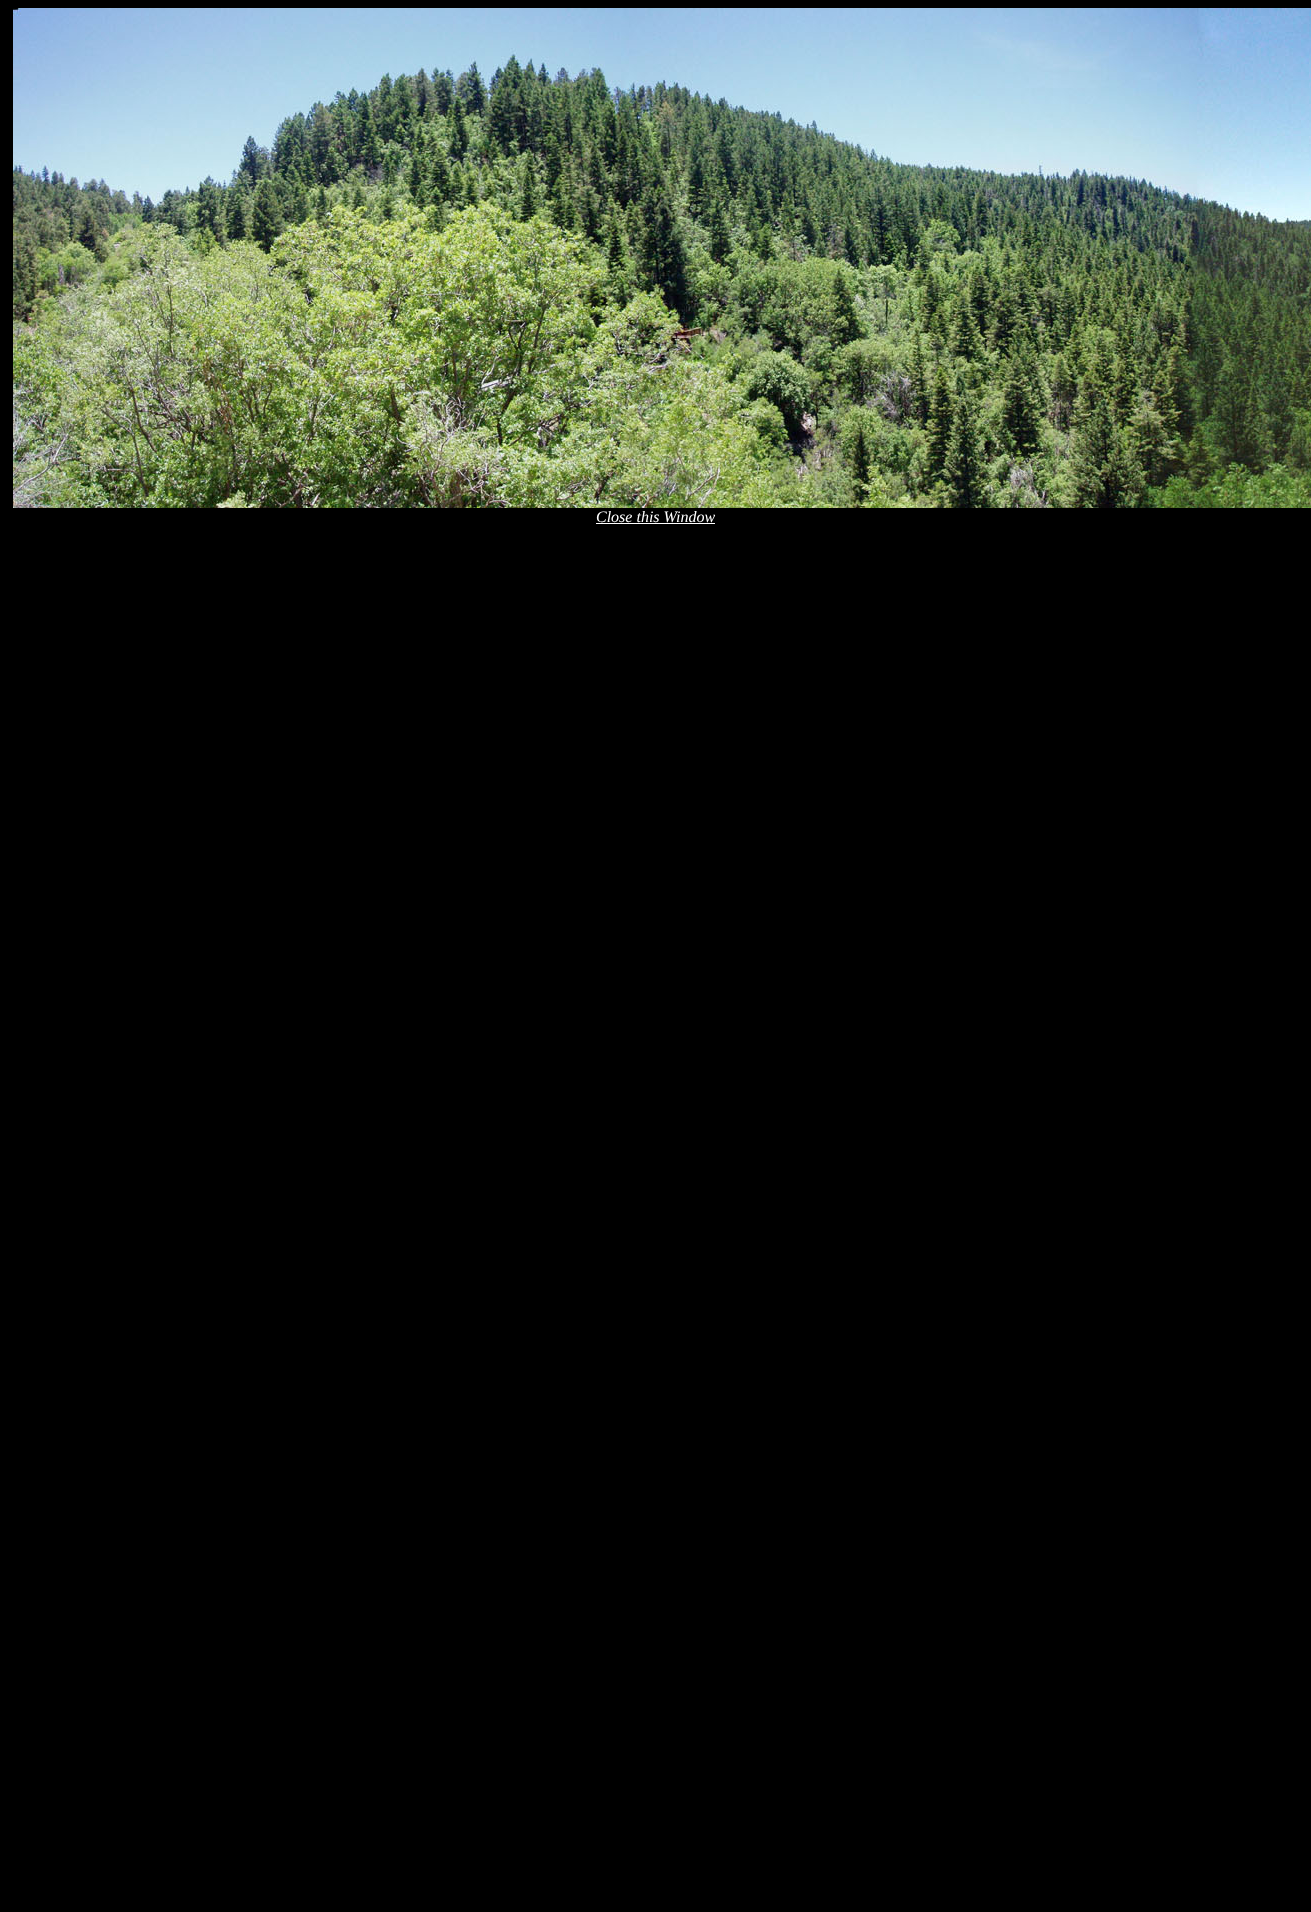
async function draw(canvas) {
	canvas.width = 1311;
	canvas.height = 1912;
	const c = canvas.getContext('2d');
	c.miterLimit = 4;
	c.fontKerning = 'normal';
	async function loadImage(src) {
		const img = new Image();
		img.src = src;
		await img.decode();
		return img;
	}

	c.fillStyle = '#000';
	c.fillRect(0, 0, 1311, 1912);
	c.drawImage(await loadImage('img1.png'), 13, 8, 1298, 500);
	c.font = 'italic 16px Liberation Serif';
	c.fillStyle = '#fff';
	c.fillText('Close this Window', 596, 522);
	c.fillRect(596, 523, 119, 1);
}

draw(document.querySelector('canvas'));
